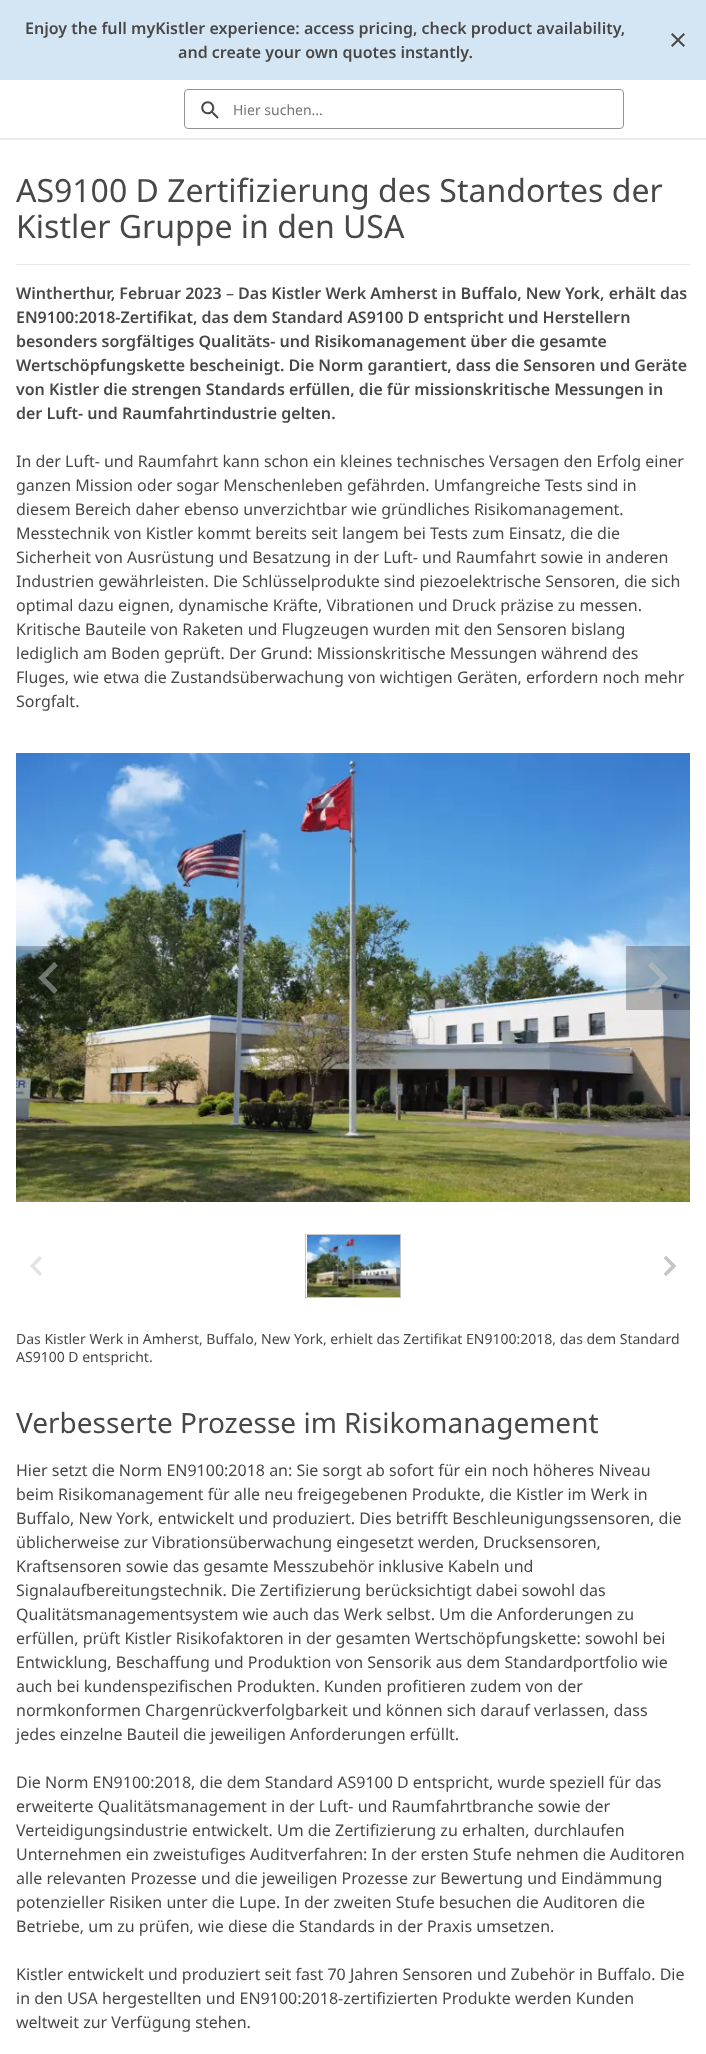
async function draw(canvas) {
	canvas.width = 706;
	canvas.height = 2054;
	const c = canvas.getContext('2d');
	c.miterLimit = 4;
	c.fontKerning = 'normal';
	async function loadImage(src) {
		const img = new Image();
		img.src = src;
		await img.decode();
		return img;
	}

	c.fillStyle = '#fff';
	c.fillRect(0, 0, 706, 2054);
	c.fillStyle = '#eceded';
	c.fillRect(0, 138, 706, 2);
	c.fillStyle = '#d4e6f4';
	c.fillRect(0, 0, 706, 80);
	c.font = '600 16px Noto Sans';
	c.fillStyle = '#484848';
	c.fillText('Enjoy the full myKistler experience: access pricing, check product availability,', 25, 34);
	c.fillText('and create your own quotes instantly.', 178, 58);
	c.drawImage(await loadImage('img1.png'), 671, 33, 14, 14);
	c.beginPath();
	c.roundRect(184.5, 89.5, 439, 39, 3.5);
	c.strokeStyle = '#929395';
	c.stroke();
	c.drawImage(await loadImage('img2.png'), 201, 101, 18, 18);
	c.font = '14px Noto Sans';
	c.fillStyle = '#757575';
	c.fillText('Hier suchen...', 233, 115);
	c.font = '32px Noto Sans';
	c.fillStyle = '#484848';
	c.fillText('AS9100 D Zertifizierung des Standortes der', 16, 202);
	c.fillText('Kistler Gruppe in den USA', 16, 238);
	c.fillStyle = '#e6e6e6';
	c.fillRect(16, 264, 674, 1);
	c.font = '600 16px Noto Sans';
	c.fillStyle = '#484848';
	c.fillText('Wintherthur, Februar 2023', 16, 299);
	c.font = '16px Noto Sans';
	c.fillText('–', 226, 299);
	c.font = '600 16px Noto Sans';
	for (const [text, x, y] of [
		['Das Kistler Werk Amherst in Buffalo, New York, erhält das', 238, 299],
		['EN9100:2018-Zertifikat, das dem Standard AS9100 D entspricht und Herstellern', 16, 323],
		['besonders sorgfältiges Qualitäts- und Risikomanagement über die gesamte', 16, 347],
		['Wertschöpfungskette bescheinigt. Die Norm garantiert, dass die Sensoren und Geräte', 16, 371],
		['von Kistler die strengen Standards erfüllen, die für missionskritische Messungen in', 16, 395],
		['der Luft- und Raumfahrtindustrie gelten.', 16, 419],
	]) {
		c.fillText(text, x, y);
	}
	c.font = '16px Noto Sans';
	for (const [text, x, y] of [
		['In der Luft- und Raumfahrt kann schon ein kleines technisches Versagen den Erfolg einer', 16, 467],
		['ganzen Mission oder sogar Menschenleben gefährden. Umfangreiche Tests sind in', 16, 491],
		['diesem Bereich daher ebenso unverzichtbar wie gründliches Risikomanagement.', 16, 515],
		['Messtechnik von Kistler kommt bereits seit langem bei Tests zum Einsatz, die die', 16, 539],
		['Sicherheit von Ausrüstung und Besatzung in der Luft- und Raumfahrt sowie in anderen', 16, 563],
		['Industrien gewährleisten. Die Schlüsselprodukte sind piezoelektrische Sensoren, die sich', 16, 587],
		['optimal dazu eignen, dynamische Kräfte, Vibrationen und Druck präzise zu messen.', 16, 611],
		['Kritische Bauteile von Raketen und Flugzeugen wurden mit den Sensoren bislang', 16, 635],
		['lediglich am Boden geprüft. Der Grund: Missionskritische Messungen während des', 16, 659],
		['Fluges, wie etwa die Zustandsüberwachung von wichtigen Geräten, erfordern noch mehr', 16, 683],
		['Sorgfalt.', 16, 707],
	]) {
		c.fillText(text, x, y);
	}
	c.drawImage(await loadImage('img3.png'), 16, 753, 674, 449);
	c.fillStyle = '#01010140';
	c.fillRect(16, 946, 64, 64);
	c.drawImage(await loadImage('img4.png'), 38, 962, 20, 32);
	c.fillRect(626, 946, 64, 64);
	c.drawImage(await loadImage('img5.png'), 648, 962, 20, 32);
	c.drawImage(await loadImage('img6.png'), 30, 1256, 12, 20);
	c.strokeStyle = '#c5c6c8';
	c.strokeRect(305.5, 1234.5, 95, 63);
	c.drawImage(await loadImage('img7.png'), 307, 1235, 93, 62);
	c.drawImage(await loadImage('img8.png'), 664, 1256, 12, 20);
	c.font = '14px Noto Sans';
	c.fillStyle = '#484848';
	c.fillText('Das Kistler Werk in Amherst, Buffalo, New York, erhielt das Zertifikat EN9100:2018, das dem Standard', 16, 1344);
	c.fillText('AS9100 D entspricht.', 16, 1362);
	c.font = '28px Noto Sans';
	c.fillText('Verbesserte Prozesse im Risikomanagement', 16, 1433);
	c.font = '16px Noto Sans';
	for (const [text, x, y] of [
		['Hier setzt die Norm EN9100:2018 an: Sie sorgt ab sofort für ein noch höheres Niveau', 16, 1476],
		['beim Risikomanagement für alle neu freigegebenen Produkte, die Kistler im Werk in', 16, 1500],
		['Buffalo, New York, entwickelt und produziert. Dies betrifft Beschleunigungssensoren, die', 16, 1524],
		['üblicherweise zur Vibrationsüberwachung eingesetzt werden, Drucksensoren,', 16, 1548],
		['Kraftsensoren sowie das gesamte Messzubehör inklusive Kabeln und', 16, 1572],
		['Signalaufbereitungstechnik. Die Zertifizierung berücksichtigt dabei sowohl das', 16, 1596],
		['Qualitätsmanagementsystem wie auch das Werk selbst. Um die Anforderungen zu', 16, 1620],
		['erfüllen, prüft Kistler Risikofaktoren in der gesamten Wertschöpfungskette: sowohl bei', 16, 1644],
		['Entwicklung, Beschaffung und Produktion von Sensorik aus dem Standardportfolio wie', 16, 1668],
		['auch bei kundenspezifischen Produkten. Kunden profitieren zudem von der', 16, 1692],
		['normkonformen Chargenrückverfolgbarkeit und können sich darauf verlassen, dass', 16, 1716],
		['jedes einzelne Bauteil die jeweiligen Anforderungen erfüllt.', 16, 1740],
		['Die Norm EN9100:2018, die dem Standard AS9100 D entspricht, wurde speziell für das', 16, 1788],
		['erweiterte Qualitätsmanagement in der Luft- und Raumfahrtbranche sowie der', 16, 1812],
		['Verteidigungsindustrie entwickelt. Um die Zertifizierung zu erhalten, durchlaufen', 16, 1836],
		['Unternehmen ein zweistufiges Auditverfahren: In der ersten Stufe nehmen die Auditoren', 16, 1860],
		['alle relevanten Prozesse und die jeweiligen Prozesse zur Bewertung und Eindämmung', 16, 1884],
		['potenzieller Risiken unter die Lupe. In der zweiten Stufe besuchen die Auditoren die', 16, 1908],
		['Betriebe, um zu prüfen, wie diese die Standards in der Praxis umsetzen.', 16, 1932],
		['Kistler entwickelt und produziert seit fast 70 Jahren Sensoren und Zubehör in Buffalo. Die', 16, 1980],
		['in den USA hergestellten und EN9100:2018-zertifizierten Produkte werden Kunden', 16, 2004],
		['weltweit zur Verfügung stehen.', 16, 2028],
	]) {
		c.fillText(text, x, y);
	}
}

draw(document.querySelector('canvas'));
